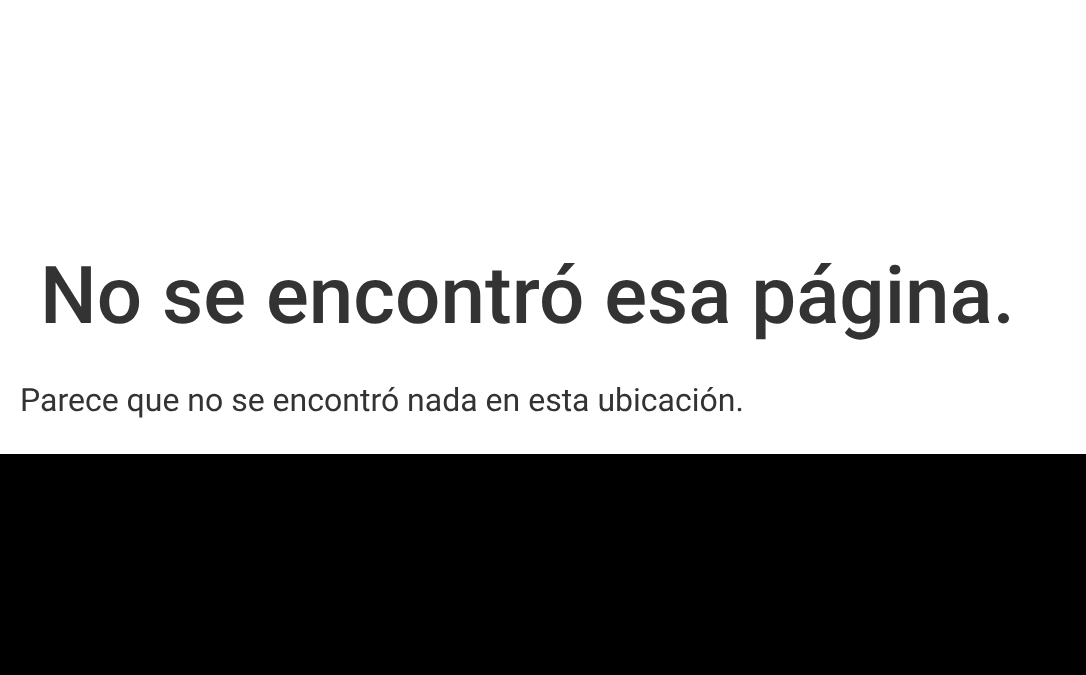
async function draw(canvas) {
	canvas.width = 1086;
	canvas.height = 675;
	const c = canvas.getContext('2d');
	c.miterLimit = 4;
	c.fontKerning = 'normal';

	c.fillStyle = '#fff';
	c.fillRect(0, 0, 1086, 675);
	c.font = '500 80px Roboto';
	c.fillStyle = '#333';
	c.fillText('No se encontró esa página.', 40, 323);
	c.font = '32px Roboto';
	c.fillText('Parece que no se encontró nada en esta ubicación.', 20, 411);
	c.fillStyle = '#000';
	c.fillRect(0, 454, 1086, 221);
}

draw(document.querySelector('canvas'));
